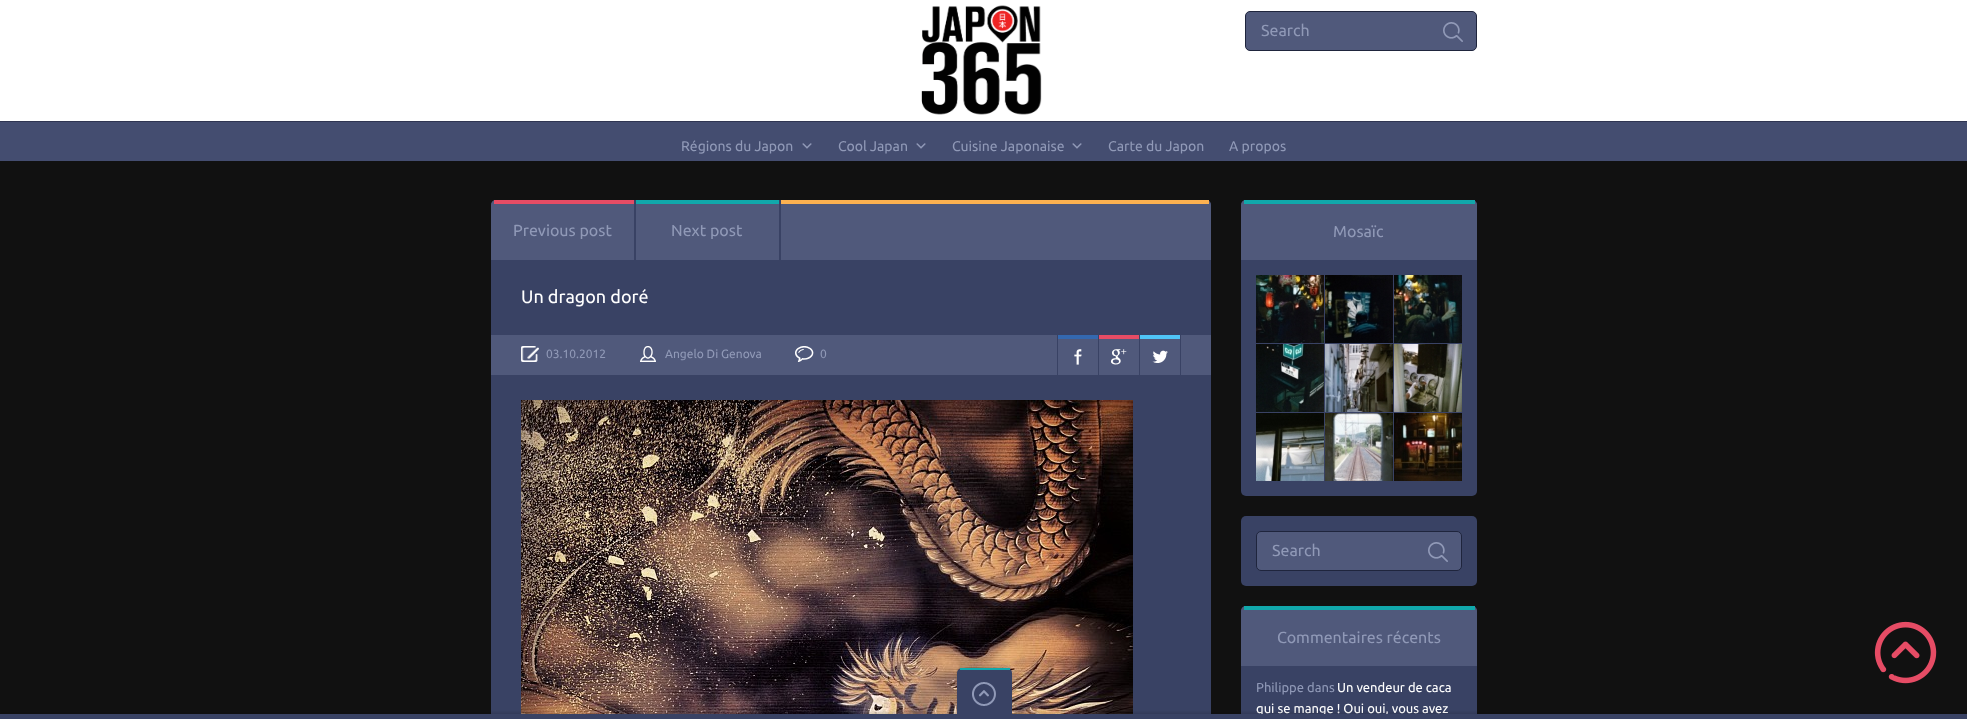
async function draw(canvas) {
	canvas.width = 1967;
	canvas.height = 719;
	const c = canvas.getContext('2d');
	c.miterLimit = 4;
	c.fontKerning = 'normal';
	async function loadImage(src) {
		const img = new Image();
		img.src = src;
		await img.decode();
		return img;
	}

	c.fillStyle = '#111';
	c.fillRect(0, 0, 1967, 719);
	c.fillStyle = '#fff';
	c.fillRect(0, 0, 1967, 121);
	c.drawImage(await loadImage('img1.png'), 921, 5, 121, 110);
	c.fillStyle = '#50597b';
	c.beginPath();
	c.roundRect(1245.5, 11.5, 231, 39, 4.5);
	c.fill();
	c.strokeStyle = '#1f253d';
	c.stroke();
	c.font = '16px Ubuntu';
	c.fillStyle = '#9099b7';
	c.fillText('Search', 1261, 36);
	c.drawImage(await loadImage('img2.png'), 1443, 22, 20, 20);
	c.fillStyle = '#444d70';
	c.fillRect(0, 122, 1967, 39);
	c.fillStyle = '#2f3552';
	c.fillRect(0, 121, 1967, 1);
	c.font = '14px Ubuntu';
	c.fillStyle = '#9099b7';
	c.fillText('Régions du Japon', 681, 151);
	c.drawImage(await loadImage('img3.png'), 802, 143, 10, 6);
	c.fillText('Cool Japan', 838, 151);
	c.drawImage(await loadImage('img3.png'), 916, 143, 10, 6);
	c.fillText('Cuisine Japonaise', 952, 151);
	c.drawImage(await loadImage('img3.png'), 1072, 143, 10, 6);
	c.fillText('Carte du Japon', 1108, 151);
	c.fillText('A propos', 1229, 151);
	c.fillStyle = '#394264';
	c.beginPath();
	c.roundRect(491, 200, 720, 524, 5);
	c.fill();
	c.fillStyle = '#50597b';
	c.beginPath();
	c.roundRect(491, 200, 720, 60, [5, 5, 0, 0]);
	c.fill();
	for (const [x, y, w, h, color] of [
		[781, 200, 428, 4, '#fcb150'],
		[634, 200, 2, 60, '#394264'],
		[494, 200, 140, 4, '#e64c65'],
	]) {
		c.fillStyle = color;
		c.fillRect(x, y, w, h);
	}
	c.font = '16px Ubuntu';
	c.fillStyle = '#9099b7';
	c.fillText('Previous post', 513, 236);
	c.fillStyle = '#394264';
	c.fillRect(779, 200, 2, 60);
	c.fillStyle = '#11a8ab';
	c.fillRect(636, 200, 143, 4);
	c.fillStyle = '#9099b7';
	c.fillText('Next post', 671, 236);
	c.font = '18px Ubuntu';
	c.fillStyle = '#fff';
	c.fillText('Un dragon doré', 521, 303);
	c.fillStyle = '#50597b';
	c.fillRect(491, 335, 720, 40);
	c.drawImage(await loadImage('img4.png'), 521, 346, 18, 16);
	c.font = '12px Ubuntu';
	c.fillStyle = '#9099b7';
	c.fillText('03.10.2012', 546, 358);
	c.drawImage(await loadImage('img5.png'), 640, 346, 16, 16);
	c.fillText('Angelo Di Genova', 665, 358);
	c.drawImage(await loadImage('img6.png'), 795, 346, 19, 16);
	c.fillText('0', 820, 358);
	c.fillStyle = '#394264';
	c.fillRect(1098, 335, 1, 40);
	c.fillRect(1057, 335, 1, 40);
	c.drawImage(await loadImage('img7.png'), 1074, 349, 8, 16);
	c.fillStyle = '#3468af';
	c.fillRect(1058, 335, 40, 4);
	c.fillStyle = '#394264';
	c.fillRect(1139, 335, 1, 40);
	c.drawImage(await loadImage('img8.png'), 1110, 349, 17, 16);
	c.fillStyle = '#e64c65';
	c.fillRect(1099, 335, 40, 4);
	c.fillStyle = '#394264';
	c.fillRect(1180, 335, 1, 40);
	c.drawImage(await loadImage('img9.png'), 1152, 350, 16, 13);
	c.fillStyle = '#4fc4f6';
	c.fillRect(1140, 335, 40, 4);
	c.drawImage(await loadImage('img10.png'), 521, 400, 612, 314);
	c.fillStyle = '#394264';
	c.beginPath();
	c.roundRect(1241, 200, 236, 296, 5);
	c.fill();
	c.fillStyle = '#50597b';
	c.beginPath();
	c.roundRect(1241, 200, 236, 60, [5, 5, 0, 0]);
	c.fill();
	c.fillStyle = '#11a8ab';
	c.fillRect(1244, 200, 231, 4);
	c.font = '16px Ubuntu';
	c.fillStyle = '#9099b7';
	c.fillText('Mosaïc', 1333, 237);
	c.drawImage(await loadImage('img11.png'), 1256, 275, 68, 68);
	c.drawImage(await loadImage('img12.png'), 1325, 275, 68, 68);
	c.drawImage(await loadImage('img13.png'), 1394, 275, 68, 68);
	c.drawImage(await loadImage('img14.png'), 1256, 344, 68, 68);
	c.drawImage(await loadImage('img15.png'), 1325, 344, 68, 68);
	c.drawImage(await loadImage('img16.png'), 1394, 344, 68, 68);
	c.drawImage(await loadImage('img17.png'), 1256, 413, 68, 68);
	c.drawImage(await loadImage('img18.png'), 1325, 413, 68, 68);
	c.drawImage(await loadImage('img19.png'), 1394, 413, 68, 68);
	c.fillStyle = '#394264';
	c.beginPath();
	c.roundRect(1241, 516, 236, 70, 5);
	c.fill();
	c.fillStyle = '#50597b';
	c.beginPath();
	c.roundRect(1256.5, 531.5, 205, 39, 4.5);
	c.fill();
	c.stroke();
	c.fillStyle = '#9099b7';
	c.fillText('Search', 1272, 556);
	c.drawImage(await loadImage('img2.png'), 1428, 542, 20, 20);
	c.fillStyle = '#394264';
	c.beginPath();
	c.roundRect(1241, 606, 236, 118, 5);
	c.fill();
	c.fillStyle = '#50597b';
	c.beginPath();
	c.roundRect(1241, 606, 236, 60, [5, 5, 0, 0]);
	c.fill();
	c.fillStyle = '#11a8ab';
	c.fillRect(1244, 606, 231, 4);
	c.fillStyle = '#9099b7';
	c.fillText('Commentaires récents', 1277, 643);
	c.font = '13px Ubuntu';
	c.fillText('Philippe dans', 1256, 692);
	c.fillStyle = '#fff';
	c.fillText('Un vendeur de caca', 1337, 692);
	c.fillText('qui se mange ! Oui oui, vous avez', 1256, 713);
	c.fillStyle = '#0000001a';
	c.filter = 'blur(1px)';
	c.beginPath();
	c.rect(0, 712, 1967, 5);
	c.fill();
	c.filter = 'none';
	c.drawImage(await loadImage('img20.png'), 1874, 621, 63, 63);
	c.fillStyle = '#394264';
	c.fillRect(0, 714, 1967, 5);
	c.fillStyle = '#0000001a';
	c.filter = 'blur(1px)';
	c.beginPath();
	c.roundRect(957, 666, 55, 46, 5);
	c.fill();
	c.filter = 'none';
	c.fillStyle = '#394264';
	c.beginPath();
	c.roundRect(957, 668, 55, 46, [5, 5, 0, 0]);
	c.fill();
	c.drawImage(await loadImage('img21.png'), 972, 682, 24, 24);
	c.fillStyle = '#11a8ab';
	c.fillRect(960, 668, 50, 2);
}

draw(document.querySelector('canvas'));
